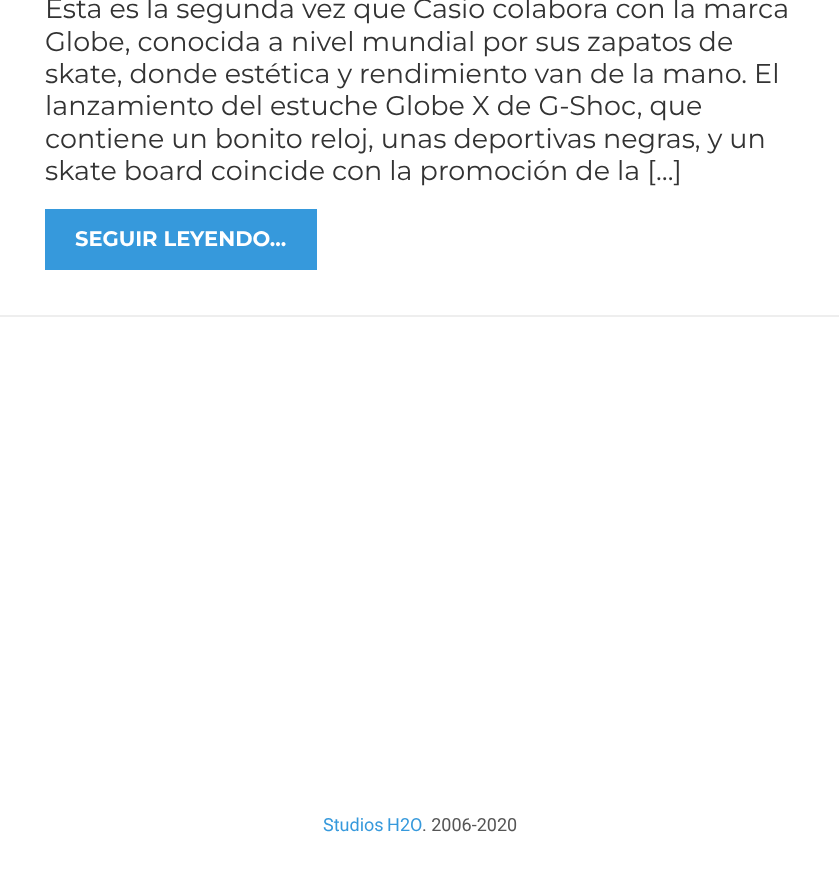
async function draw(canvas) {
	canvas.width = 839;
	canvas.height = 885;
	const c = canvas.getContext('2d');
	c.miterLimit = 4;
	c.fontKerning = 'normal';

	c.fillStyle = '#fff';
	c.fillRect(0, 0, 839, 885);
	c.fillStyle = '#eee';
	c.fillRect(0, 315, 839, 2);
	c.font = '27px Montserrat';
	c.fillStyle = '#333';
	for (const [text, x, y] of [
		['Esta es la segunda vez que Casio colabora con la marca', 45, 18],
		['Globe, conocida a nivel mundial por sus zapatos de', 45, 51],
		['skate, donde estética y rendimiento van de la mano. El', 45, 83],
		['lanzamiento del estuche Globe X de G-Shoc, que', 45, 115],
		['contiene un bonito reloj, unas deportivas negras, y un', 45, 148],
		['skate board coincide con la promoción de la […]', 45, 180],
	]) {
		c.fillText(text, x, y);
	}
	c.fillStyle = '#3699dc';
	c.fillRect(45, 209, 272, 61);
	c.font = 'bold 21px Montserrat';
	c.fillStyle = '#fff';
	c.fillText('SEGUIR LEYENDO...', 75, 246);
	c.wordSpacing = '-1px';
	c.font = '18px Roboto';
	c.fillStyle = '#3699dc';
	c.fillText('Studios H2O', 323, 831);
	c.wordSpacing = '0px';
	c.fillStyle = '#555';
	c.fillText('. 2006-2020', 422, 831);
}

draw(document.querySelector('canvas'));
